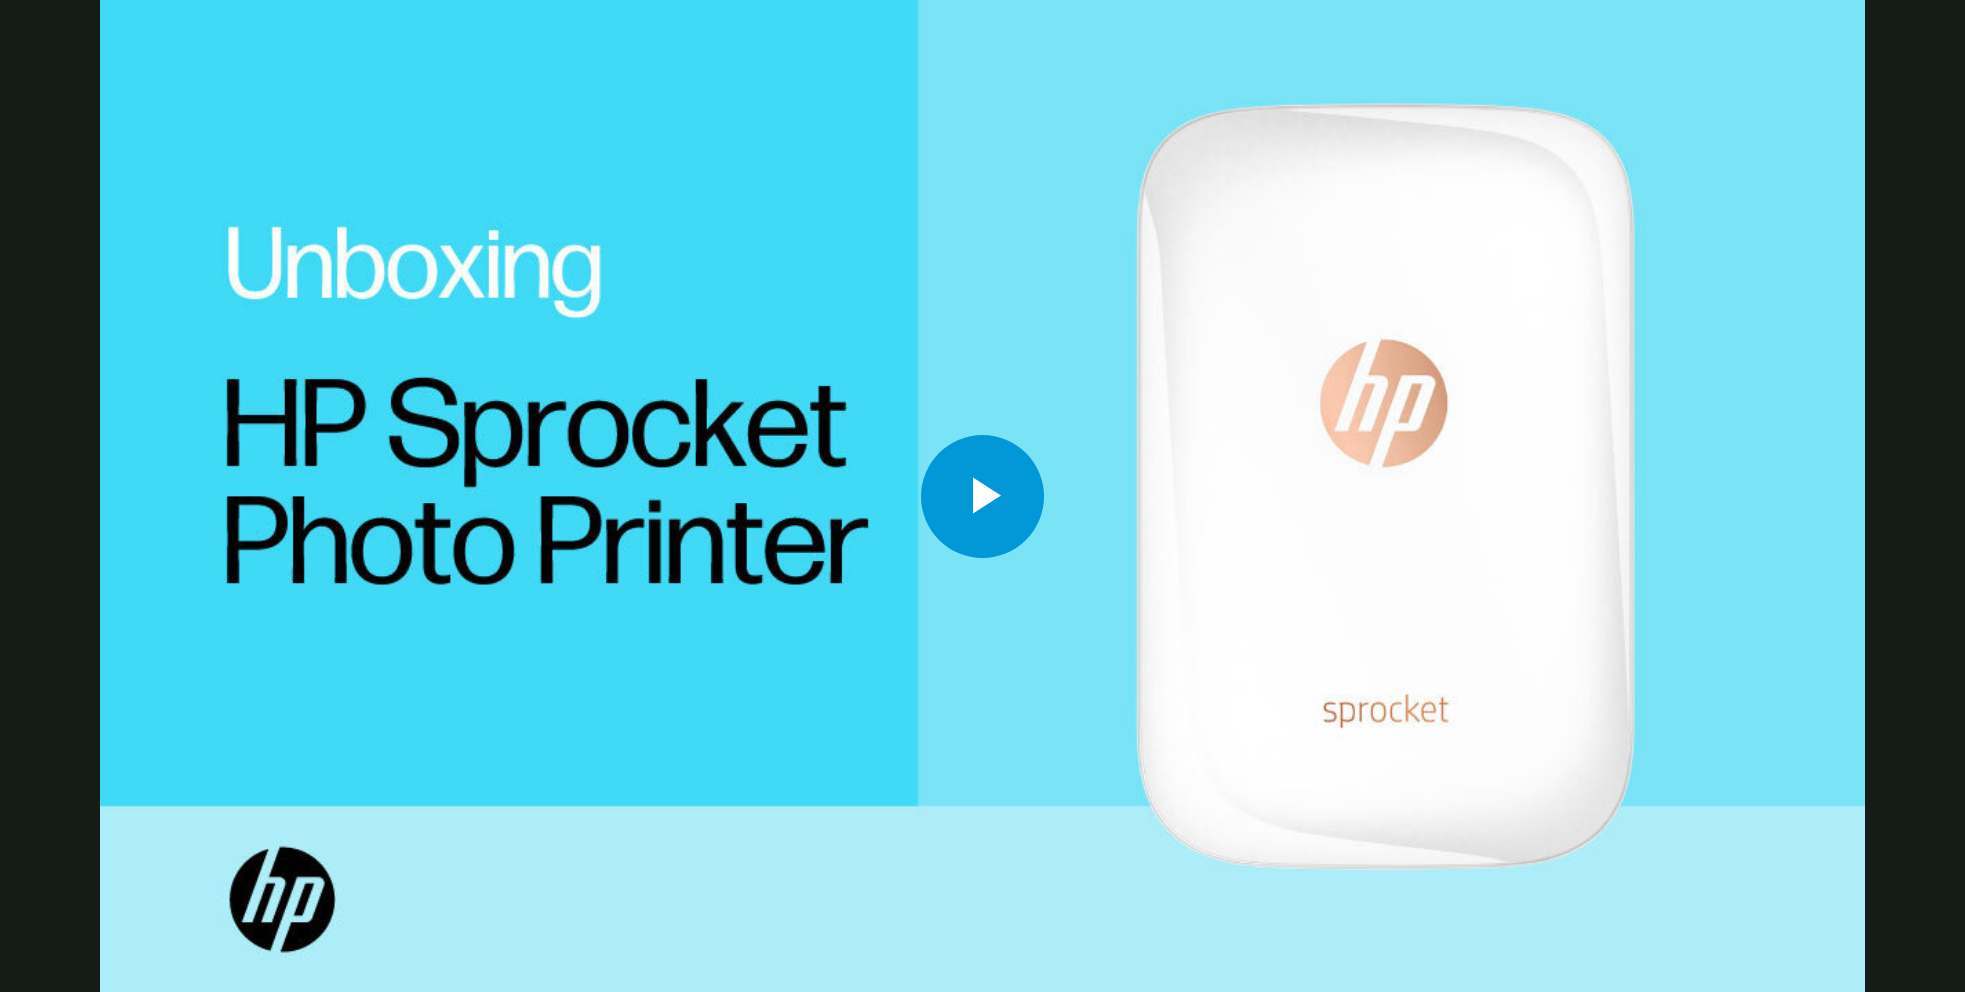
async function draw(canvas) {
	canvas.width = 1965;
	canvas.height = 992;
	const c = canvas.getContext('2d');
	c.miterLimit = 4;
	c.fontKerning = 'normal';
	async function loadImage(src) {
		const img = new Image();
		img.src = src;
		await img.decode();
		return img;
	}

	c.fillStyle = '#151b17';
	c.fillRect(0, 0, 1965, 992);
	c.drawImage(await loadImage('img1.png'), 100, 0, 1765, 992);
	c.fillStyle = '#0297d6';
	c.beginPath();
	c.arc(982.5, 496.5, 61.5, 0, 2 * Math.PI);
	c.fill();
	c.fillStyle = '#fff';
	c.beginPath();
	c.moveTo(973, 477.5);
	c.lineTo(973, 513.5);
	c.lineTo(1001, 495.5);
	c.closePath();
	c.fill();
}

draw(document.querySelector('canvas'));
